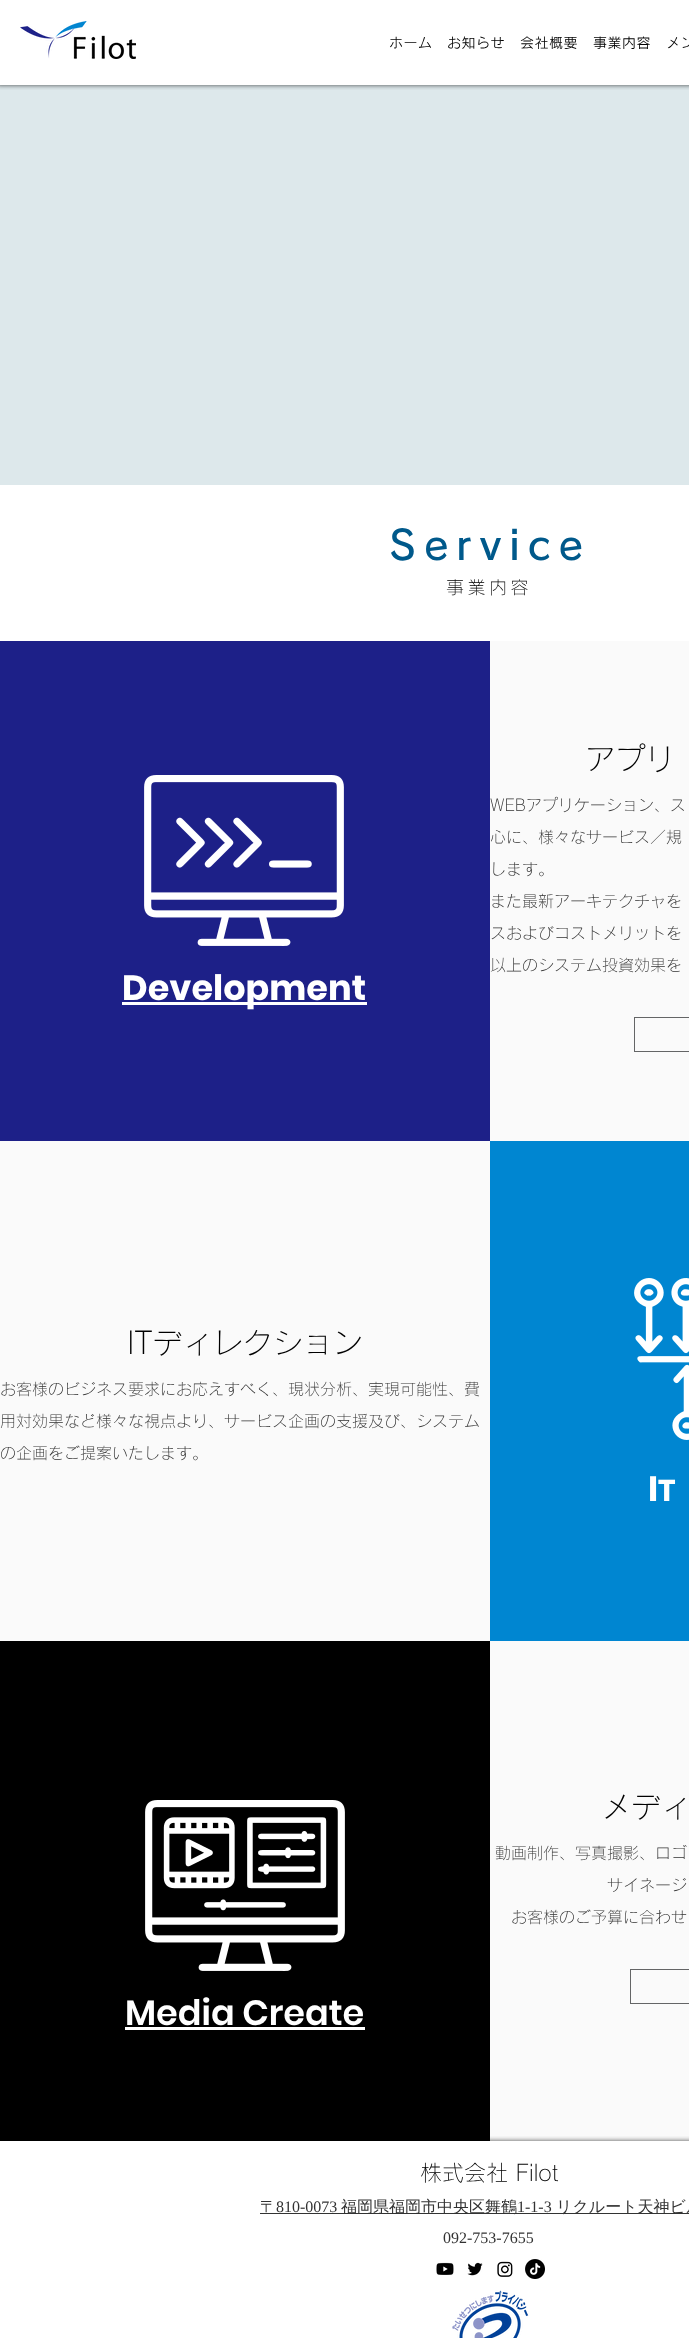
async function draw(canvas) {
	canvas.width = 689;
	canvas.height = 2338;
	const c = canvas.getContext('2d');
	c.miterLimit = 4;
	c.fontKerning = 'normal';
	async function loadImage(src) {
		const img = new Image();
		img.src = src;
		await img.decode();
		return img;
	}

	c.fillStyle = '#fff';
	c.fillRect(0, 0, 689, 2338);
	c.fillStyle = '#dde8eb';
	c.fillRect(0, 85, 689, 400);
	c.save();
	c.beginPath();
	c.rect(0, 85, 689, 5);
	c.clip();
	c.fillStyle = '#000000b3';
	c.filter = 'blur(2.5px)';
	c.beginPath();
	c.rect(-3, -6, 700, 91);
	c.fill();
	c.filter = 'none';
	c.restore();
	c.drawImage(await loadImage('img1.png'), 20, 21, 116, 38);
	c.letterSpacing = '0.5px';
	c.font = '500 14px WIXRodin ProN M';
	c.fillStyle = '#000';
	for (const [text, x, y] of [
		['ホーム', 389, 48],
		['お知らせ', 447, 48],
		['会社概要', 520, 48],
		['事業内容', 593, 48],
		['メン', 666, 48],
	]) {
		c.fillText(text, x, y);
	}
	c.letterSpacing = '8px';
	c.font = '600 40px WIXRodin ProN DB';
	c.fillStyle = '#00598b';
	c.fillText('Service', 389, 560);
	c.letterSpacing = '3.5px';
	c.font = '300 18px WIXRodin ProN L';
	c.fillStyle = '#000';
	c.fillText('事業内容', 446, 594);
	c.fillStyle = '#fafafa';
	c.fillRect(490, 641, 199, 500);
	c.letterSpacing = '0px';
	c.font = '300 30px WIXRodin ProN L';
	c.fillStyle = '#000';
	c.fillText('アプリ', 585, 770);
	c.font = '300 16px WIXRodin ProN L';
	c.fillStyle = '#323232';
	for (const [text, x, y] of [
		['WEBアプリケーション、ス', 490, 811],
		['心に、様々なサービス／規', 490, 843],
		['します。', 490, 875],
		['また最新アーキテクチャを', 490, 907],
		['スおよびコストメリットを', 490, 939],
		['以上のシステム投資効果を', 490, 971],
	]) {
		c.fillText(text, x, y);
	}
	c.strokeStyle = '#646566';
	c.strokeRect(634.5, 1017.5, 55, 34);
	c.fillStyle = '#1d2088';
	c.fillRect(0, 641, 490, 500);
	c.drawImage(await loadImage('img2.png'), 144, 775, 200, 171);
	c.fillStyle = '#fff';
	c.fillRect(122, 1002, 245, 3);
	c.font = 'bold 35px Poppins';
	c.fillText('Development', 122, 1000);
	c.fillStyle = '#fafafa';
	c.fillRect(0, 1141, 490, 500);
	c.font = '300 30px WIXRodin ProN L';
	c.fillStyle = '#000';
	c.fillText('ITディレクション', 127, 1354);
	c.font = '300 16px WIXRodin ProN L';
	c.fillStyle = '#323232';
	for (const [text, x, y] of [
		['お客様のビジネス要求にお応えすべく、現状分析、実現可能性、費', 0, 1395],
		['用対効果など様々な視点より、サービス企画の支援及び、システム', 0, 1427],
		['の企画をご提案いたします。', 0, 1459],
	]) {
		c.fillText(text, x, y);
	}
	c.fillStyle = '#0086d1';
	c.fillRect(490, 1141, 199, 500);
	c.drawImage(await loadImage('img3.png'), 634, 1278, 55, 162);
	c.font = 'bold 35px Poppins';
	c.fillStyle = '#fff';
	c.fillText('I', 648, 1501);
	c.font = 'bold 30px Poppins';
	c.fillText('T', 658, 1501);
	c.fillStyle = '#fafafa';
	c.fillRect(490, 1641, 199, 500);
	c.font = '300 30px WIXRodin ProN L';
	c.fillStyle = '#000';
	c.fillText('メディ', 601, 1818);
	c.font = '300 16px WIXRodin ProN L';
	c.fillStyle = '#323232';
	for (const [text, x, y] of [
		['動画制作、写真撮影、ロゴ', 495, 1859],
		['サイネージ', 607, 1891],
		['お客様のご予算に合わせ', 511, 1923],
	]) {
		c.fillText(text, x, y);
	}
	c.strokeRect(630.5, 1969.5, 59, 34);
	c.fillStyle = '#000';
	c.fillRect(0, 1641, 490, 500);
	c.drawImage(await loadImage('img4.png'), 145, 1800, 200, 171);
	c.font = '600 35px Poppins';
	c.fillStyle = '#fff';
	c.fillText('Media Create', 125, 2025);
	c.fillRect(125, 2027, 240, 3);
	c.save();
	c.beginPath();
	c.rect(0, 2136, 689, 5);
	c.clip();
	c.fillStyle = '#000000b3';
	c.filter = 'blur(2.5px)';
	c.beginPath();
	c.rect(0, 2141, 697, 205);
	c.fill();
	c.filter = 'none';
	c.restore();
	c.font = '300 22px WIXRodin ProN L';
	c.fillStyle = '#000';
	c.fillText('株式会社 Filot', 420, 2181);
	c.font = '500 16px WenQuanYi Zen Hei';
	c.fillStyle = '#323232';
	c.fillText('〒', 260, 2212);
	c.font = '16px Liberation Serif';
	c.fillText('810-0073', 276, 2212);
	c.fillStyle = '#323333';
	c.fillRect(260, 2213, 429, 1);
	c.font = '500 16px WenQuanYi Zen Hei';
	c.fillStyle = '#323232';
	c.fillText('福岡県福岡市中央区舞鶴', 341, 2212);
	c.font = '16px Liberation Serif';
	c.fillText('1-1-3', 517, 2212);
	c.font = '500 16px WenQuanYi Zen Hei';
	c.fillText('リクルート天神ビル', 556, 2212);
	c.font = '16px Liberation Serif';
	c.fillText('092-753-7655', 443, 2243);
	c.drawImage(await loadImage('img5.png'), 436, 2262, 18, 13);
	c.drawImage(await loadImage('img6.png'), 467, 2262, 16, 14);
	c.drawImage(await loadImage('img7.png'), 497, 2261, 16, 16);
	c.drawImage(await loadImage('img8.png'), 525, 2259, 20, 20);
	c.drawImage(await loadImage('img9.png'), 452, 2290, 77, 48);
}

draw(document.querySelector('canvas'));
